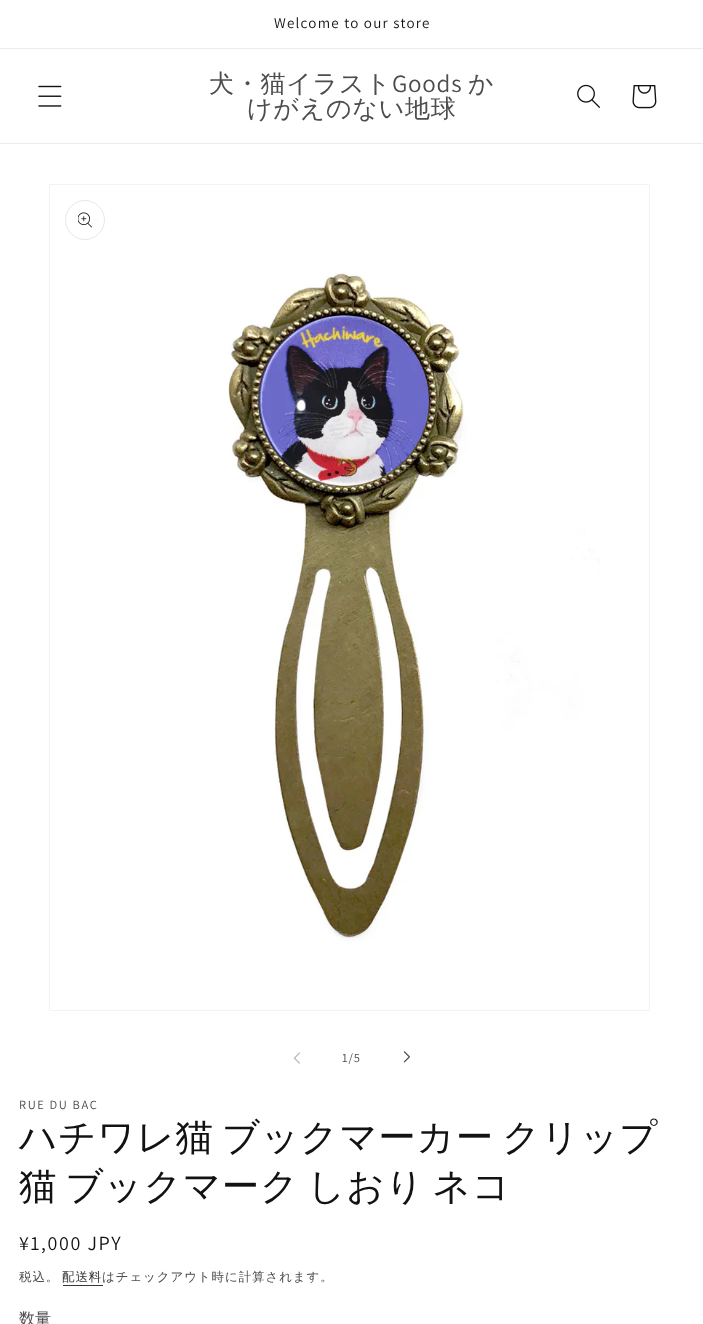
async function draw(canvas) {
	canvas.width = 703;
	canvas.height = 1324;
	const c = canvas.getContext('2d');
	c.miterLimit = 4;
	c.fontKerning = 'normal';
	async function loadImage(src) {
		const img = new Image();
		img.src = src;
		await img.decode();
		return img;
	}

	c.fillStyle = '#fff';
	c.fillRect(0, 0, 703, 1324);
	c.fillStyle = '#ececec';
	c.fillRect(0, 48, 703, 1);
	c.letterSpacing = '1.25px';
	c.font = '15px Assistant';
	c.fillStyle = '#121212';
	c.fillText('Welcome to our store', 274, 28);
	c.fillStyle = '#ececec';
	c.fillRect(0, 143, 703, 1);
	c.drawImage(await loadImage('img1.png'), 38, 85, 24, 22);
	c.letterSpacing = '0.75px';
	c.font = '500 25px WenQuanYi Zen Hei';
	c.fillStyle = '#4d4d4d';
	c.fillText('犬・猫イラスト', 209, 92);
	c.font = '25px Assistant';
	c.fillText('Goods', 392, 92);
	c.font = '500 25px WenQuanYi Zen Hei';
	c.fillText('か', 468, 92);
	c.fillText('けがえのない地球', 247, 117);
	c.drawImage(await loadImage('img2.png'), 577, 84, 23, 24);
	c.drawImage(await loadImage('img3.png'), 632, 85, 25, 24);
	c.strokeStyle = '#f3f3f3';
	c.strokeRect(49.5, 184.5, 600, 826);
	c.beginPath();
	c.arc(85, 220, 19.5, 0, 2 * Math.PI);
	c.strokeStyle = '#e7e7e7';
	c.stroke();
	c.drawImage(await loadImage('img4.png'), 78, 212, 14, 16);
	c.drawImage(await loadImage('img5.png'), 228, 272, 372, 669);
	c.drawImage(await loadImage('img6.png'), 293, 1052, 7, 12);
	c.letterSpacing = '0.9px';
	c.font = '12.5px Assistant';
	c.fillText('1/5', 342, 1062);
	c.drawImage(await loadImage('img7.png'), 403, 1051, 7, 12);
	c.letterSpacing = '1.6px';
	c.fillText('RUE DU BAC', 19, 1109);
	c.letterSpacing = '0.75px';
	c.wordSpacing = '-4px';
	c.font = '500 37.5px WenQuanYi Zen Hei';
	c.fillStyle = '#121212';
	c.fillText('ハチワレ猫 ブックマーカー クリップ', 19, 1150);
	c.fillText('猫 ブックマーク しおり ネコ', 19, 1199);
	c.letterSpacing = '1.6px';
	c.wordSpacing = '0px';
	c.font = '20px Assistant';
	c.fillText('¥1,000 JPY', 19, 1250);
	c.letterSpacing = '0.9px';
	c.font = '500 12.5px WenQuanYi Zen Hei';
	c.fillStyle = '#4d4d4d';
	c.fillText('税込。', 19, 1281);
	c.fillStyle = '#363636';
	c.fillText('配送料', 62, 1281);
	c.fillRect(63, 1285, 40, 1);
	c.fillStyle = '#4d4d4d';
	c.fillText('はチェックアウト時に計算されます。', 102, 1281);
	c.letterSpacing = '0px';
	c.font = '500 16px WenQuanYi Zen Hei';
	c.fillText('数量', 19, 1324);
}

draw(document.querySelector('canvas'));
